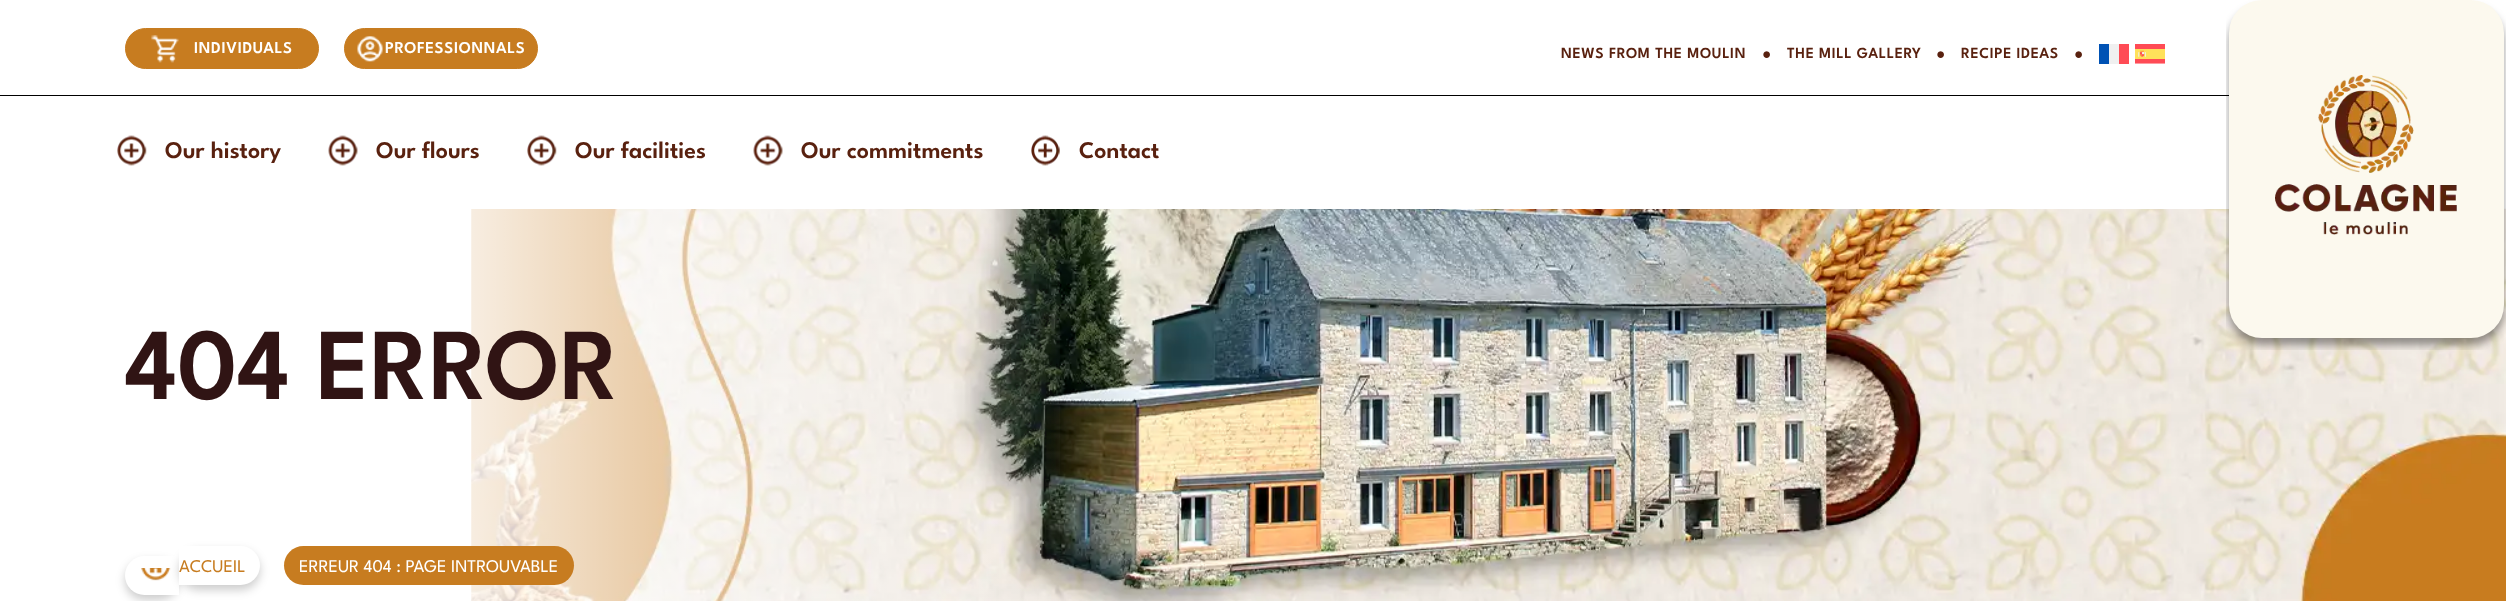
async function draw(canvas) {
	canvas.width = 2506;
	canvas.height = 601;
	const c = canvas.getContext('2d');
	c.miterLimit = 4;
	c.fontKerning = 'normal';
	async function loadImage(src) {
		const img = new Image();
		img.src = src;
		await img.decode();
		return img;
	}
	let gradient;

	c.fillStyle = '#fff';
	c.fillRect(0, 0, 2506, 601);
	c.fillStyle = '#c77c20';
	c.beginPath();
	c.roundRect(125.5, 28.5, 193, 40, 20);
	c.fill();
	c.strokeStyle = '#c77c20';
	c.stroke();
	c.drawImage(await loadImage('img1.png'), 151, 35, 28, 28);
	c.letterSpacing = '0.6px';
	c.font = '600 16.5px League Spartan';
	c.fillStyle = '#fff';
	c.fillText('INDIVIDUALS', 194, 53);
	c.fillStyle = '#c77c20';
	c.beginPath();
	c.roundRect(344.5, 28.5, 193, 40, 20);
	c.fill();
	c.stroke();
	c.drawImage(await loadImage('img2.png'), 357, 36, 26, 26);
	c.fillStyle = '#fff';
	c.fillText('PROFESSIONNALS', 385, 53);
	c.fillStyle = '#000';
	c.fillRect(0, 95, 2229, 1);
	c.font = '600 15.4px League Spartan';
	c.fillStyle = '#59210f';
	c.fillText('NEWS FROM THE MOULIN', 1561, 58);
	c.font = 'bold 15.4px Liberation Sans';
	c.fillText('●', 1762, 59);
	c.font = '600 15.4px League Spartan';
	c.fillText('THE MILL GALLERY', 1787, 58);
	c.font = 'bold 15.4px Liberation Sans';
	c.fillText('●', 1936, 59);
	c.font = '600 15.4px League Spartan';
	c.fillText('RECIPE IDEAS', 1961, 58);
	c.font = 'bold 15.4px Liberation Sans';
	c.fillText('●', 2074, 59);
	for (const [x, y, w, h, color] of [
		[2109, 44, 10, 20, '#f0f0f0'],
		[2119, 44, 10, 20, '#ff4b55'],
		[2099, 44, 10, 20, '#0052b4'],
	]) {
		c.fillStyle = color;
		c.fillRect(x, y, w, h);
	}
	c.drawImage(await loadImage('img3.png'), 2135, 44, 30, 20);
	c.drawImage(await loadImage('img8.png'), 471, 208, 2035, 393);
	c.fillStyle = '#fff';
	c.fillRect(471, 208, 1758, 1);
	c.drawImage(await loadImage('img4.png'), 117, 135, 30, 31);
	c.letterSpacing = '0px';
	c.font = '600 24px League Spartan';
	c.fillStyle = '#59210f';
	c.fillText('Our history', 165, 158);
	c.drawImage(await loadImage('img5.png'), 328, 135, 30, 31);
	c.fillText('Our flours', 376, 158);
	c.drawImage(await loadImage('img4.png'), 527, 135, 30, 31);
	c.fillText('Our facilities', 575, 158);
	c.drawImage(await loadImage('img5.png'), 753, 135, 30, 31);
	c.fillText('Our commitments', 801, 158);
	c.drawImage(await loadImage('img6.png'), 1031, 135, 29, 31);
	c.fillText('Contact', 1079, 158);
	c.save();
	c.beginPath();
	c.rect(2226, 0, 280, 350);
	c.clip();
	c.fillStyle = '#00000066';
	c.filter = 'blur(4px)';
	c.beginPath();
	c.roundRect(2229, 8, 275, 337, 33);
	c.fill();
	c.filter = 'none';
	c.restore();
	c.fillStyle = '#fcf9ee';
	c.beginPath();
	c.roundRect(2229, 0, 275, 338, 33);
	c.fill();
	c.drawImage(await loadImage('img7.png'), 2275, 75, 182, 160);
	gradient = c.createLinearGradient(0, 459, 1075, 459);
	gradient.addColorStop(0.35, '#fff');
	gradient.addColorStop(1, '#ffffff00');
	c.fillStyle = gradient;
	c.fillRect(471, 209, 589, 392);
	c.font = '600 102px League Spartan';
	c.fillStyle = '#301414';
	c.fillText('404 ERROR', 125, 399);
	c.fillStyle = '#00000033';
	c.filter = 'blur(5px)';
	c.beginPath();
	c.roundRect(125, 561, 54, 39, 19.5);
	c.fill();
	c.filter = 'none';
	c.fillStyle = '#fff';
	c.beginPath();
	c.roundRect(125, 556, 54, 39, [19.5, 0, 0, 19.5]);
	c.fill();
	c.fillStyle = '#00000033';
	c.filter = 'blur(5px)';
	c.beginPath();
	c.roundRect(179, 551, 81, 39, 19.5);
	c.fill();
	c.filter = 'none';
	c.fillStyle = '#fff';
	c.beginPath();
	c.roundRect(179, 546, 81, 39, [0, 19.5, 19.5, 0]);
	c.fill();
	c.font = '18px League Spartan';
	c.fillStyle = '#c77c20';
	c.fillText('ACCUEIL', 179, 572);
	c.beginPath();
	c.roundRect(284, 546, 290, 39, 19.5);
	c.fill();
	c.fillStyle = '#fff';
	c.fillText('ERREUR 404 : PAGE INTROUVABLE', 299, 572);
	c.drawImage(await loadImage('img9.png'), 141, 568, 30, 13);
}

draw(document.querySelector('canvas'));
